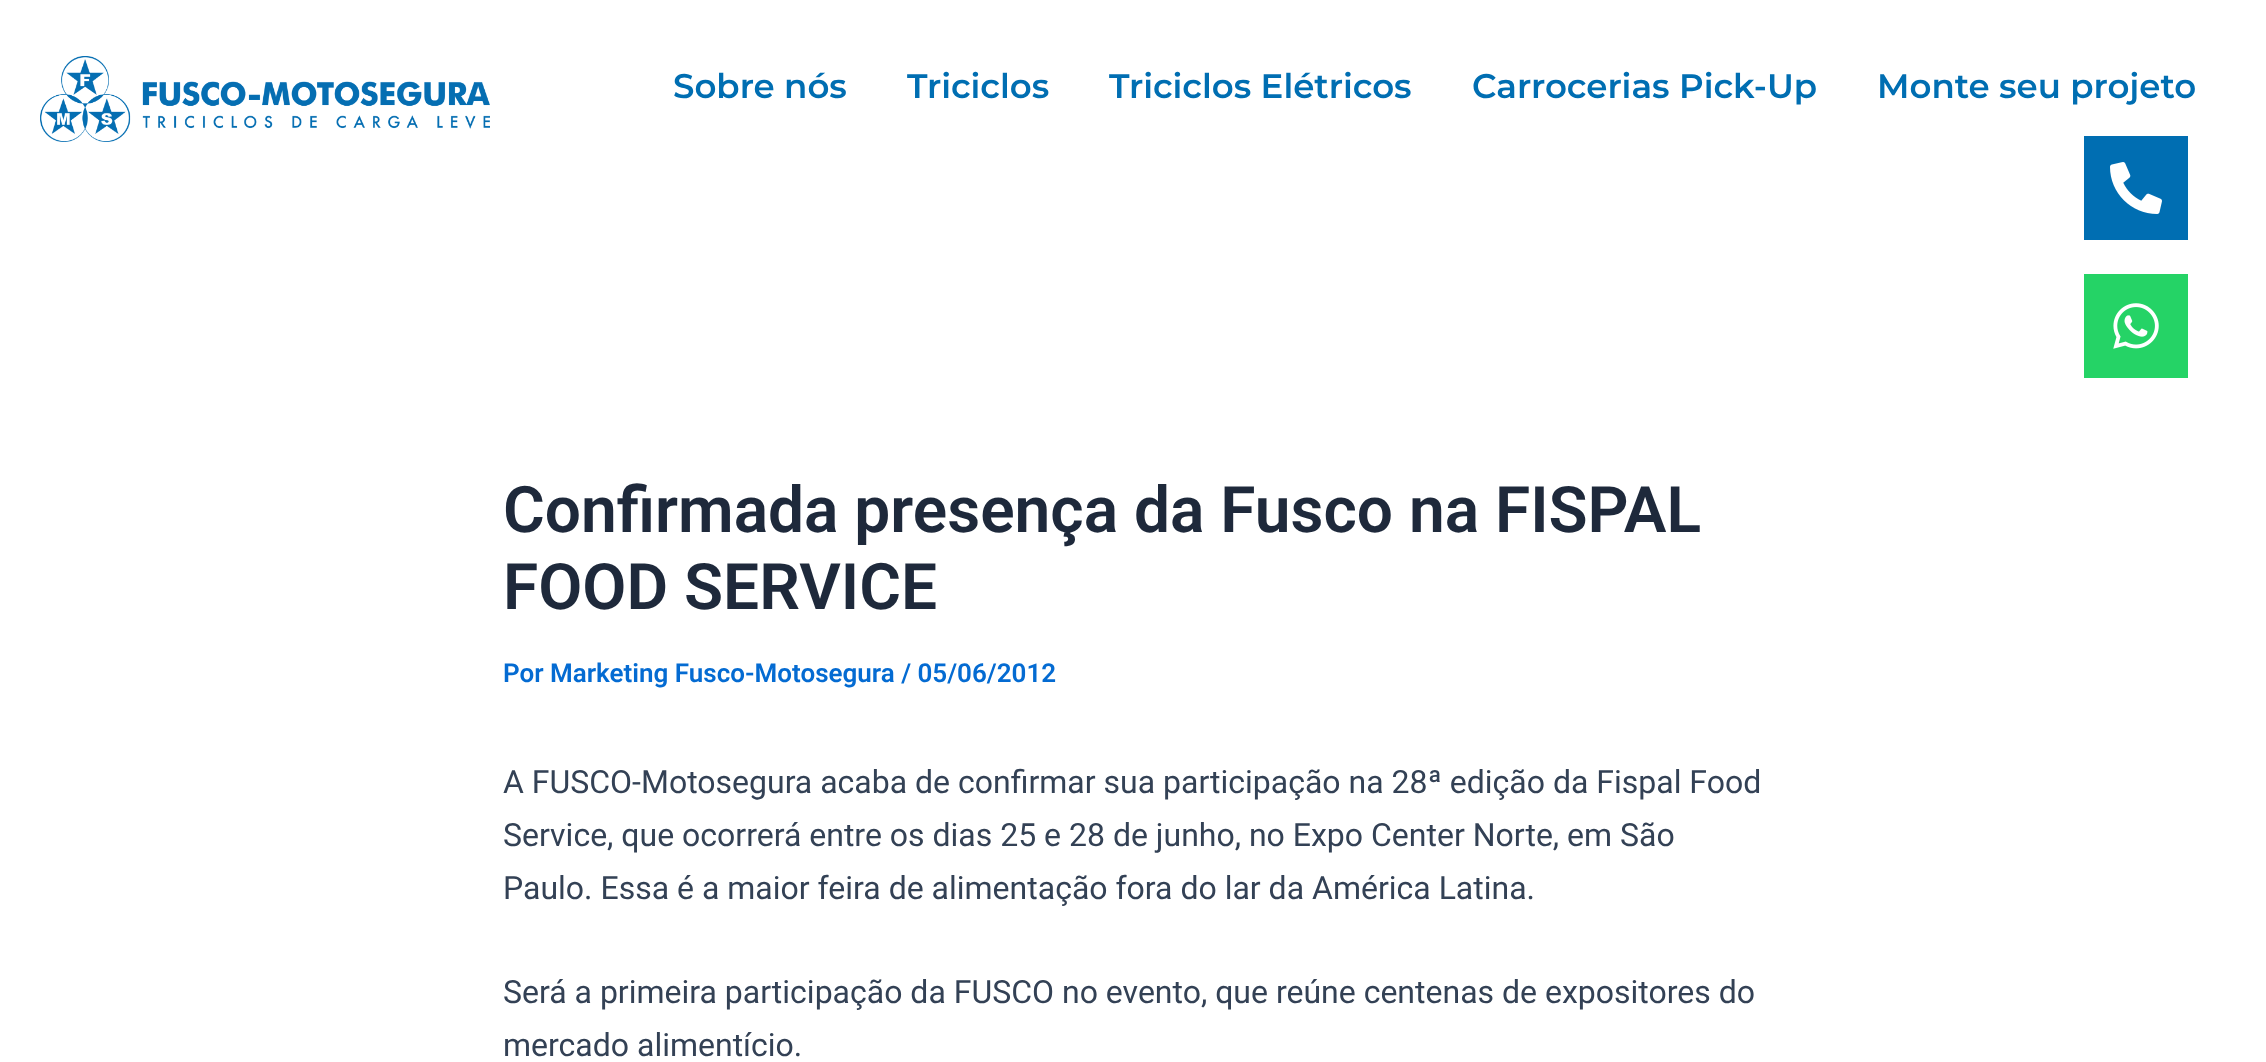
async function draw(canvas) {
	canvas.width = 2266;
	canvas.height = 1062;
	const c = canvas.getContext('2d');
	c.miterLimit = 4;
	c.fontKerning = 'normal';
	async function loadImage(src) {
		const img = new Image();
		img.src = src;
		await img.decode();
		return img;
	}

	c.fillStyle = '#fff';
	c.fillRect(0, 0, 2266, 1062);
	c.drawImage(await loadImage('img1.png'), 40, 56, 450, 86);
	c.font = '600 34px Montserrat';
	c.fillStyle = '#006eb2';
	for (const [text, x, y] of [
		['Sobre nós', 673, 98],
		['Triciclos', 907, 98],
		['Triciclos Elétricos', 1109, 98],
		['Carrocerias Pick-Up', 1472, 98],
		['Monte seu projeto', 1877, 98],
	]) {
		c.fillText(text, x, y);
	}
	c.fillRect(2084, 136, 104, 104);
	c.drawImage(await loadImage('img2.png'), 2110, 162, 52, 52);
	c.fillStyle = '#25d366';
	c.fillRect(2084, 274, 104, 104);
	c.drawImage(await loadImage('img3.png'), 2113, 303, 46, 46);
	c.font = '600 64px Roboto';
	c.fillStyle = '#1e293b';
	c.fillText('Confirmada presença da Fusco na FISPAL', 503, 532);
	c.fillText('FOOD SERVICE', 503, 609);
	c.font = '600 26px Roboto';
	c.fillStyle = '#046bd2';
	c.fillText('Por Marketing Fusco-Motosegura / 05/06/2012', 503, 682);
	c.font = '32px Roboto';
	c.fillStyle = '#334155';
	for (const [text, x, y] of [
		['A FUSCO-Motosegura acaba de confirmar sua participação na 28ª edição da Fispal Food', 503, 793],
		['Service, que ocorrerá entre os dias 25 e 28 de junho, no Expo Center Norte, em São', 503, 846],
		['Paulo. Essa é a maior feira de alimentação fora do lar da América Latina.', 503, 899],
		['Será a primeira participação da FUSCO no evento, que reúne centenas de expositores do', 503, 1003],
		['mercado alimentício.', 503, 1056],
	]) {
		c.fillText(text, x, y);
	}
}

draw(document.querySelector('canvas'));
